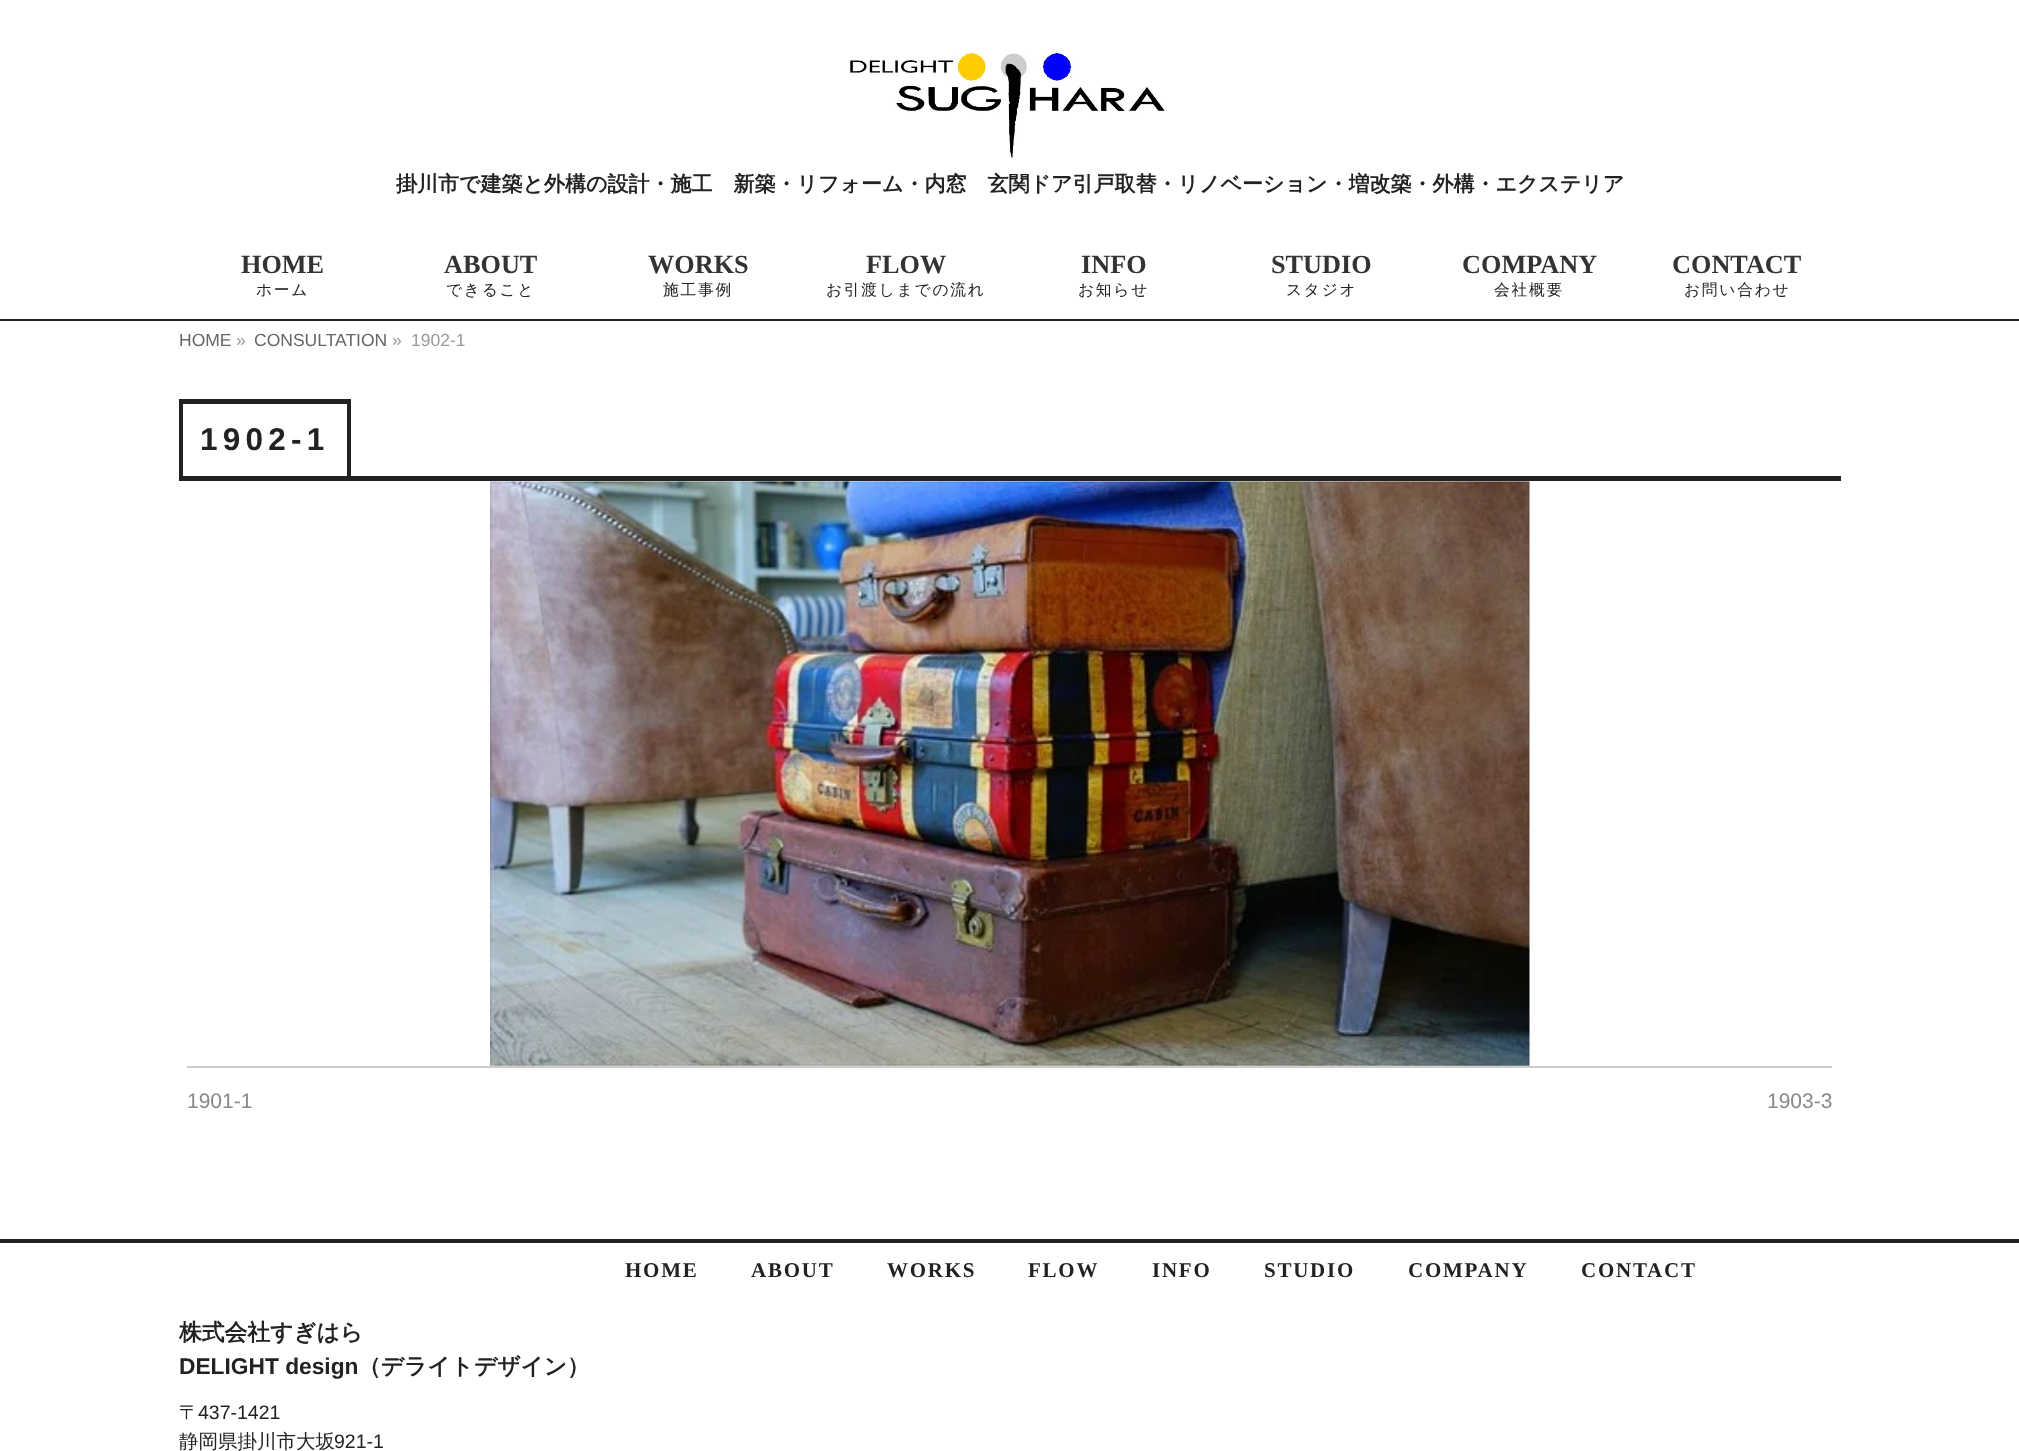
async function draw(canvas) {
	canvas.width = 2019;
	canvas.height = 1451;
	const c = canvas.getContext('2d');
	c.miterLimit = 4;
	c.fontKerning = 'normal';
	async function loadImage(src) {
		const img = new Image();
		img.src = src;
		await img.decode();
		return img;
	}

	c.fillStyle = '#fff';
	c.fillRect(0, 0, 2019, 1451);
	c.drawImage(await loadImage('img1.png'), 850, 52, 315, 106);
	c.font = 'bold 21px WenQuanYi Zen Hei';
	c.fillStyle = '#222';
	c.fillText('掛川市で建築と外構の設計・施工　新築・リフォーム・内窓　玄関ドア引戸取替・リノベーション・増改築・外構・エクステリア', 396, 191);
	c.fillRect(0, 319, 2019, 2);
	c.font = 'bold 26.25px Liberation Serif';
	c.fillStyle = '#333';
	c.fillText('HOME', 241, 273);
	c.letterSpacing = '1.75px';
	c.font = '500 15.75px WenQuanYi Zen Hei';
	c.fillStyle = '#222';
	c.fillText('ホーム', 256, 295);
	c.letterSpacing = '0px';
	c.font = 'bold 26.25px Liberation Serif';
	c.fillStyle = '#333';
	c.fillText('ABOUT', 444, 273);
	c.letterSpacing = '1.75px';
	c.font = '500 15.75px WenQuanYi Zen Hei';
	c.fillStyle = '#222';
	c.fillText('できること', 446, 295);
	c.letterSpacing = '0px';
	c.font = 'bold 26.25px Liberation Serif';
	c.fillStyle = '#333';
	c.fillText('WORKS', 648, 273);
	c.letterSpacing = '1.75px';
	c.font = '500 15.75px WenQuanYi Zen Hei';
	c.fillStyle = '#222';
	c.fillText('施工事例', 663, 295);
	c.letterSpacing = '0px';
	c.font = 'bold 26.25px Liberation Serif';
	c.fillStyle = '#333';
	c.fillText('FLOW', 866, 273);
	c.letterSpacing = '1.75px';
	c.font = '500 15.75px WenQuanYi Zen Hei';
	c.fillStyle = '#222';
	c.fillText('お引渡しまでの流れ', 826, 295);
	c.letterSpacing = '0px';
	c.font = 'bold 26.25px Liberation Serif';
	c.fillStyle = '#333';
	c.fillText('INFO', 1081, 273);
	c.letterSpacing = '1.75px';
	c.font = '500 15.75px WenQuanYi Zen Hei';
	c.fillStyle = '#222';
	c.fillText('お知らせ', 1078, 295);
	c.letterSpacing = '0px';
	c.font = 'bold 26.25px Liberation Serif';
	c.fillStyle = '#333';
	c.fillText('STUDIO', 1271, 273);
	c.letterSpacing = '1.75px';
	c.font = '500 15.75px WenQuanYi Zen Hei';
	c.fillStyle = '#222';
	c.fillText('スタジオ', 1286, 295);
	c.letterSpacing = '0px';
	c.font = 'bold 26.25px Liberation Serif';
	c.fillStyle = '#333';
	c.fillText('COMPANY', 1462, 273);
	c.letterSpacing = '1.75px';
	c.font = '500 15.75px WenQuanYi Zen Hei';
	c.fillStyle = '#222';
	c.fillText('会社概要', 1494, 295);
	c.letterSpacing = '0px';
	c.font = 'bold 26.25px Liberation Serif';
	c.fillStyle = '#333';
	c.fillText('CONTACT', 1672, 273);
	c.letterSpacing = '1.75px';
	c.font = '500 15.75px WenQuanYi Zen Hei';
	c.fillStyle = '#222';
	c.fillText('お問い合わせ', 1684, 295);
	c.letterSpacing = '0px';
	c.font = '17.5px Liberation Sans';
	c.fillStyle = '#666';
	c.fillText('HOME', 179, 346);
	c.fillStyle = '#999';
	c.fillText('»', 236, 346);
	c.fillStyle = '#666';
	c.fillText('CONSULTATION', 254, 346);
	c.fillStyle = '#999';
	c.fillText('»', 392, 346);
	c.fillText('1902-1', 411, 346);
	for (const [x, y, w, h, color] of [
		[179, 476, 1662, 5, '#222'],
		[179, 399, 171, 5, '#222'],
		[347, 399, 4, 77, '#222'],
		[179, 399, 4, 77, '#222'],
	]) {
		c.fillStyle = color;
		c.fillRect(x, y, w, h);
	}
	c.letterSpacing = '5.25px';
	c.font = 'bold 31.5px Liberation Sans';
	c.fillText('1902-1', 200, 450);
	c.drawImage(await loadImage('img2.png'), 490, 481, 1040, 585);
	c.fillStyle = '#ccc';
	c.fillRect(187, 1066, 1645, 2);
	c.letterSpacing = '0px';
	c.font = '21px Liberation Sans';
	c.fillStyle = '#888';
	c.fillText('1901-1', 187, 1108);
	c.fillText('1903-3', 1767, 1108);
	c.fillStyle = '#222';
	c.fillRect(0, 1239, 2019, 4);
	c.letterSpacing = '1.75px';
	c.font = 'bold 21px Liberation Serif';
	for (const [text, x, y] of [
		['HOME', 625, 1277],
		['ABOUT', 751, 1277],
		['WORKS', 887, 1277],
		['FLOW', 1028, 1277],
		['INFO', 1152, 1277],
		['STUDIO', 1264, 1277],
		['COMPANY', 1408, 1277],
		['CONTACT', 1581, 1277],
	]) {
		c.fillText(text, x, y);
	}
	c.letterSpacing = '0px';
	c.font = 'bold 22.75px WenQuanYi Zen Hei';
	c.fillText('株式会社すぎはら', 179, 1340);
	c.font = 'bold 22.75px Liberation Sans';
	c.fillText('DELIGHT design', 179, 1374);
	c.font = 'bold 22.75px WenQuanYi Zen Hei';
	c.fillText('（デライトデザイン）', 358, 1374);
	c.font = '500 19.5px WenQuanYi Zen Hei';
	c.fillText('〒', 179, 1419);
	c.font = '19.5px Liberation Sans';
	c.fillText('437-1421', 198, 1419);
	c.font = '500 19.5px WenQuanYi Zen Hei';
	c.fillText('静岡県掛川市大坂', 179, 1448);
	c.font = '19.5px Liberation Sans';
	c.fillText('921-1', 334, 1448);
}

draw(document.querySelector('canvas'));
